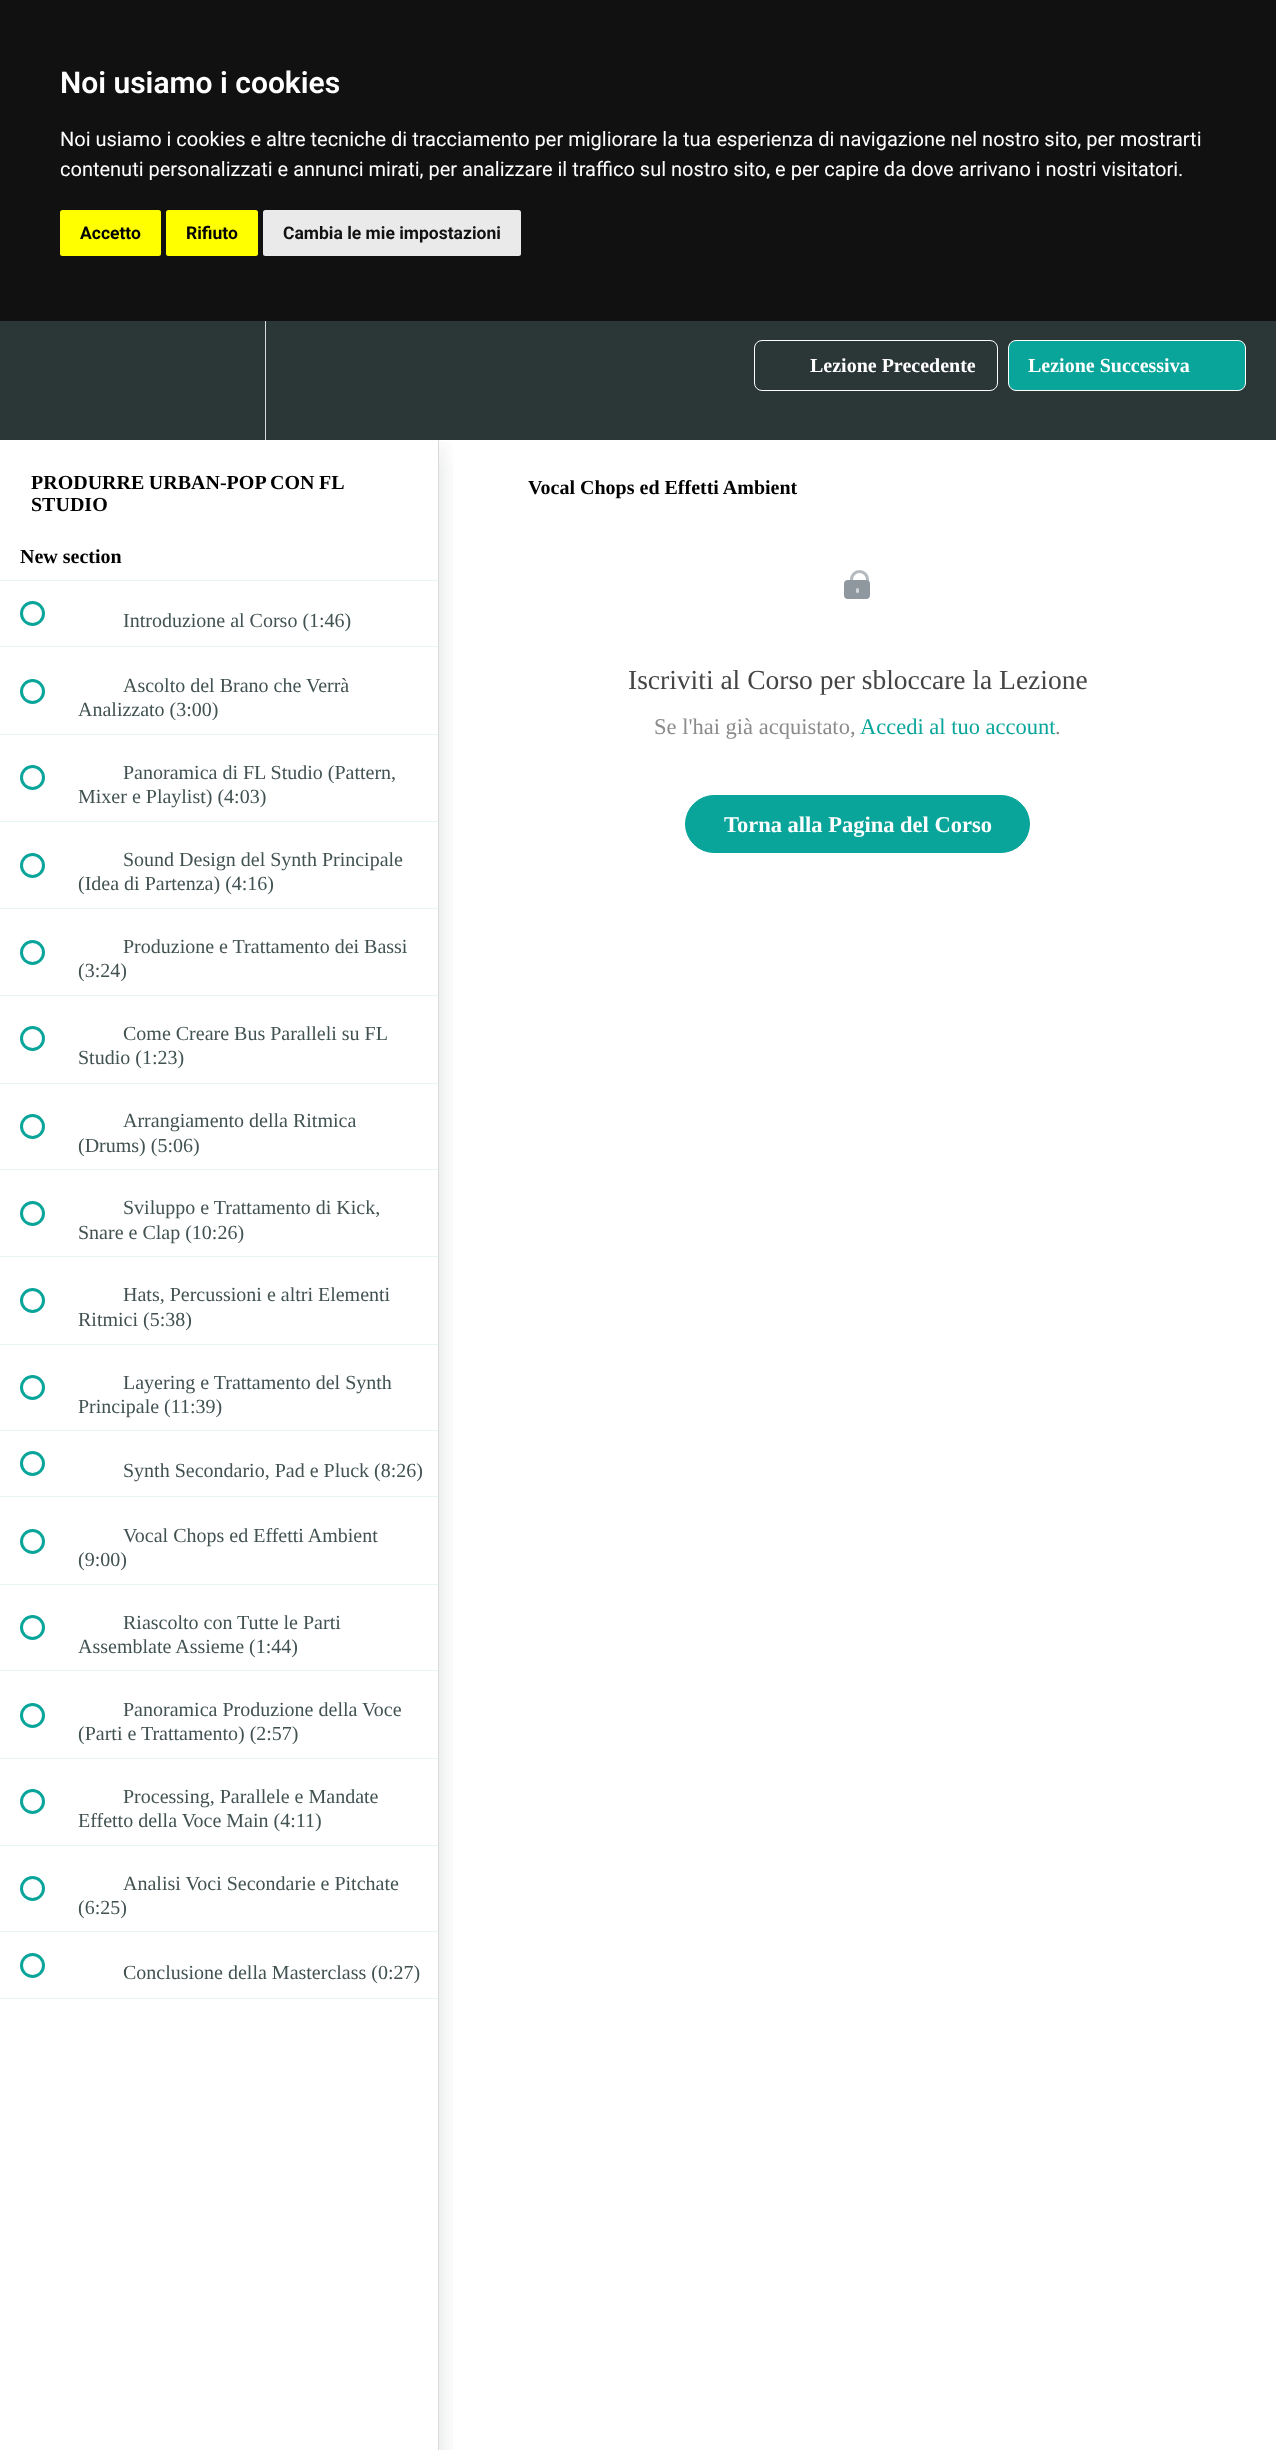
async function draw(canvas) {
	canvas.width = 1276;
	canvas.height = 2450;
	const c = canvas.getContext('2d');
	c.miterLimit = 4;
	c.fontKerning = 'normal';

	c.fillStyle = '#fff';
	c.fillRect(0, 0, 1276, 2450);
	c.fillStyle = '#111';
	c.fillRect(0, 0, 1276, 321);
	c.font = '600 30px Roboto';
	c.fillStyle = '#fff';
	c.fillText('Noi usiamo i cookies', 60, 93);
	c.font = '20px Roboto';
	c.fillText('Noi usiamo i cookies e altre tecniche di tracciamento per migliorare la tua esperienza di navigazione nel nostro sito, per mostrarti', 60, 146);
	c.fillText('contenuti personalizzati e annunci mirati, per analizzare il traffico sul nostro sito, e per capire da dove arrivano i nostri visitatori.', 60, 176);
	c.fillStyle = '#ff0';
	c.beginPath();
	c.roundRect(60, 210, 101, 46, 2.5);
	c.fill();
	c.font = 'bold 17.5px Roboto';
	c.fillStyle = '#000';
	c.fillText('Accetto', 80, 239);
	c.fillStyle = '#ff0';
	c.beginPath();
	c.roundRect(166, 210, 92, 46, 2.5);
	c.fill();
	c.fillStyle = '#000';
	c.fillText('Rifiuto', 186, 239);
	c.fillStyle = '#eaeaea';
	c.beginPath();
	c.roundRect(263, 210, 258, 46, 2.5);
	c.fill();
	c.fillStyle = '#111';
	c.fillText('Cambia le mie impostazioni', 283, 239);
	c.save();
	c.beginPath();
	c.rect(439, 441, 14, 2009);
	c.clip();
	c.fillStyle = '#20272d26';
	c.filter = 'blur(12.5px)';
	c.beginPath();
	c.rect(0, 448, 439, 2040);
	c.fill();
	c.filter = 'none';
	c.restore();
	c.fillStyle = '#2b3636';
	c.fillRect(0, 321, 1276, 119);
	c.fillStyle = '#d7dadb';
	c.fillRect(265, 321, 1, 119);
	c.beginPath();
	c.roundRect(754.5, 340.5, 243, 50, 7.5);
	c.strokeStyle = '#fff';
	c.stroke();
	c.font = 'bold 20px Liberation Serif';
	c.fillStyle = '#fff';
	c.fillText('Lezione Precedente', 810, 372);
	c.fillStyle = '#09a59a';
	c.beginPath();
	c.roundRect(1008.5, 340.5, 237, 50, 7.5);
	c.fill();
	c.stroke();
	c.fillStyle = '#fff';
	c.fillText('Lezione Successiva', 1028, 372);
	c.fillStyle = '#d7dadb';
	c.fillRect(438, 440, 1, 2010);
	c.wordSpacing = '-0.5px';
	c.fillStyle = '#000';
	c.fillText('PRODURRE URBAN-POP CON FL', 31, 489);
	c.wordSpacing = '0px';
	c.fillText('STUDIO', 31, 511);
	c.fillStyle = '#e6f6f5';
	c.fillRect(0, 580, 438, 1);
	c.fillStyle = '#000';
	c.fillText('New section', 20, 563);
	c.fillStyle = '#e6f6f5';
	c.fillRect(0, 646, 438, 1);
	c.beginPath();
	c.arc(32.5, 613.5, 11, 0, 2 * Math.PI);
	c.strokeStyle = '#09a59a';
	c.lineWidth = 3;
	c.stroke();
	c.font = '20px Liberation Serif';
	c.fillStyle = '#425252';
	c.fillText('Introduzione al Corso (1:46)', 123, 627);
	c.fillStyle = '#e6f6f5';
	c.fillRect(0, 734, 438, 1);
	c.beginPath();
	c.arc(32.5, 691.5, 11, 0, 2 * Math.PI);
	c.stroke();
	c.fillStyle = '#425252';
	c.fillText('Ascolto del Brano che Verrà', 123, 692);
	c.fillText('Analizzato (3:00)', 78, 716);
	c.fillStyle = '#e6f6f5';
	c.fillRect(0, 821, 438, 1);
	c.beginPath();
	c.arc(32.5, 777.5, 11, 0, 2 * Math.PI);
	c.stroke();
	c.fillStyle = '#425252';
	c.fillText('Panoramica di FL Studio (Pattern,', 123, 779);
	c.fillText('Mixer e Playlist) (4:03)', 78, 803);
	c.fillStyle = '#e6f6f5';
	c.fillRect(0, 908, 438, 1);
	c.beginPath();
	c.arc(32.5, 865.5, 11, 0, 2 * Math.PI);
	c.stroke();
	c.fillStyle = '#425252';
	c.fillText('Sound Design del Synth Principale', 123, 866);
	c.fillText('(Idea di Partenza) (4:16)', 78, 890);
	c.fillStyle = '#e6f6f5';
	c.fillRect(0, 995, 438, 1);
	c.beginPath();
	c.arc(32.5, 952.5, 11, 0, 2 * Math.PI);
	c.stroke();
	c.fillStyle = '#425252';
	c.fillText('Produzione e Trattamento dei Bassi', 123, 953);
	c.fillText('(3:24)', 78, 977);
	c.fillStyle = '#e6f6f5';
	c.fillRect(0, 1083, 438, 1);
	c.beginPath();
	c.arc(32.5, 1038.5, 11, 0, 2 * Math.PI);
	c.stroke();
	c.fillStyle = '#425252';
	c.fillText('Come Creare Bus Paralleli su FL', 123, 1040);
	c.fillText('Studio (1:23)', 78, 1064);
	c.fillStyle = '#e6f6f5';
	c.fillRect(0, 1169, 438, 1);
	c.beginPath();
	c.arc(32.5, 1126.5, 11, 0, 2 * Math.PI);
	c.stroke();
	c.fillStyle = '#425252';
	c.fillText('Arrangiamento della Ritmica', 123, 1127);
	c.fillText('(Drums) (5:06)', 78, 1152);
	c.fillStyle = '#e6f6f5';
	c.fillRect(0, 1256, 438, 1);
	c.beginPath();
	c.arc(32.5, 1213.5, 11, 0, 2 * Math.PI);
	c.stroke();
	c.fillStyle = '#425252';
	c.fillText('Sviluppo e Trattamento di Kick,', 123, 1214);
	c.fillText('Snare e Clap (10:26)', 78, 1239);
	c.fillStyle = '#e6f6f5';
	c.fillRect(0, 1344, 438, 1);
	c.beginPath();
	c.arc(32.5, 1300.5, 11, 0, 2 * Math.PI);
	c.stroke();
	c.fillStyle = '#425252';
	c.fillText('Hats, Percussioni e altri Elementi', 123, 1301);
	c.fillText('Ritmici (5:38)', 78, 1326);
	c.fillStyle = '#e6f6f5';
	c.fillRect(0, 1430, 438, 1);
	c.beginPath();
	c.arc(32.5, 1387.5, 11, 0, 2 * Math.PI);
	c.stroke();
	c.fillStyle = '#425252';
	c.fillText('Layering e Trattamento del Synth', 123, 1389);
	c.fillText('Principale (11:39)', 78, 1413);
	c.fillStyle = '#e6f6f5';
	c.fillRect(0, 1496, 438, 1);
	c.beginPath();
	c.arc(32.5, 1463.5, 11, 0, 2 * Math.PI);
	c.stroke();
	c.fillStyle = '#425252';
	c.fillText('Synth Secondario, Pad e Pluck (8:26)', 123, 1477);
	c.fillStyle = '#e6f6f5';
	c.fillRect(0, 1584, 438, 1);
	c.beginPath();
	c.arc(32.5, 1541.5, 11, 0, 2 * Math.PI);
	c.stroke();
	c.fillStyle = '#425252';
	c.fillText('Vocal Chops ed Effetti Ambient', 123, 1542);
	c.fillText('(9:00)', 78, 1566);
	c.fillStyle = '#e6f6f5';
	c.fillRect(0, 1670, 438, 1);
	c.beginPath();
	c.arc(32.5, 1627.5, 11, 0, 2 * Math.PI);
	c.stroke();
	c.fillStyle = '#425252';
	c.fillText('Riascolto con Tutte le Parti', 123, 1629);
	c.fillText('Assemblate Assieme (1:44)', 78, 1653);
	c.fillStyle = '#e6f6f5';
	c.fillRect(0, 1758, 438, 1);
	c.beginPath();
	c.arc(32.5, 1715.5, 11, 0, 2 * Math.PI);
	c.stroke();
	c.fillStyle = '#425252';
	c.fillText('Panoramica Produzione della Voce', 123, 1716);
	c.fillText('(Parti e Trattamento) (2:57)', 78, 1740);
	c.fillStyle = '#e6f6f5';
	c.fillRect(0, 1845, 438, 1);
	c.beginPath();
	c.arc(32.5, 1801.5, 11, 0, 2 * Math.PI);
	c.stroke();
	c.fillStyle = '#425252';
	c.fillText('Processing, Parallele e Mandate', 123, 1803);
	c.fillText('Effetto della Voce Main (4:11)', 78, 1827);
	c.fillStyle = '#e6f6f5';
	c.fillRect(0, 1931, 438, 1);
	c.beginPath();
	c.arc(32.5, 1888.5, 11, 0, 2 * Math.PI);
	c.stroke();
	c.fillStyle = '#425252';
	c.fillText('Analisi Voci Secondarie e Pitchate', 123, 1890);
	c.fillText('(6:25)', 78, 1914);
	c.fillStyle = '#e6f6f5';
	c.fillRect(0, 1998, 438, 1);
	c.beginPath();
	c.arc(32.5, 1965.5, 11, 0, 2 * Math.PI);
	c.stroke();
	c.fillStyle = '#425252';
	c.fillText('Conclusione della Masterclass (0:27)', 123, 1979);
	c.font = 'bold 20px Liberation Serif';
	c.fillStyle = '#000';
	c.fillText('Vocal Chops ed Effetti Ambient', 528, 494);
	c.beginPath();
	c.roundRect(851.5, 571.5, 16, 25, 8);
	c.strokeStyle = '#b5babf';
	c.stroke();
	c.fillStyle = '#8f989f';
	c.beginPath();
	c.roundRect(844, 580, 26, 19, 4);
	c.fill();
	c.fillStyle = '#d3d7dc';
	c.beginPath();
	c.roundRect(856, 588, 3, 5, 1.5);
	c.fill();
	c.font = '27.5px Liberation Serif';
	c.fillStyle = '#454545';
	c.fillText('Iscriviti al Corso per sbloccare la Lezione', 628, 689);
	c.font = '22.5px Liberation Serif';
	c.fillStyle = '#8b8b8b';
	c.fillText('Se l\'hai già acquistato,', 654, 734);
	c.fillStyle = '#09a59a';
	c.fillText('Accedi al tuo account', 860, 734);
	c.fillStyle = '#8b8b8b';
	c.fillText('.', 1055, 734);
	c.fillStyle = '#09a59a';
	c.beginPath();
	c.roundRect(685.5, 795.5, 344, 57, 28.5);
	c.fill();
	c.strokeStyle = '#09a59a';
	c.lineWidth = 1;
	c.stroke();
	c.font = 'bold 22.5px Liberation Serif';
	c.fillStyle = '#fff';
	c.fillText('Torna alla Pagina del Corso', 724, 832);
}

draw(document.querySelector('canvas'));
